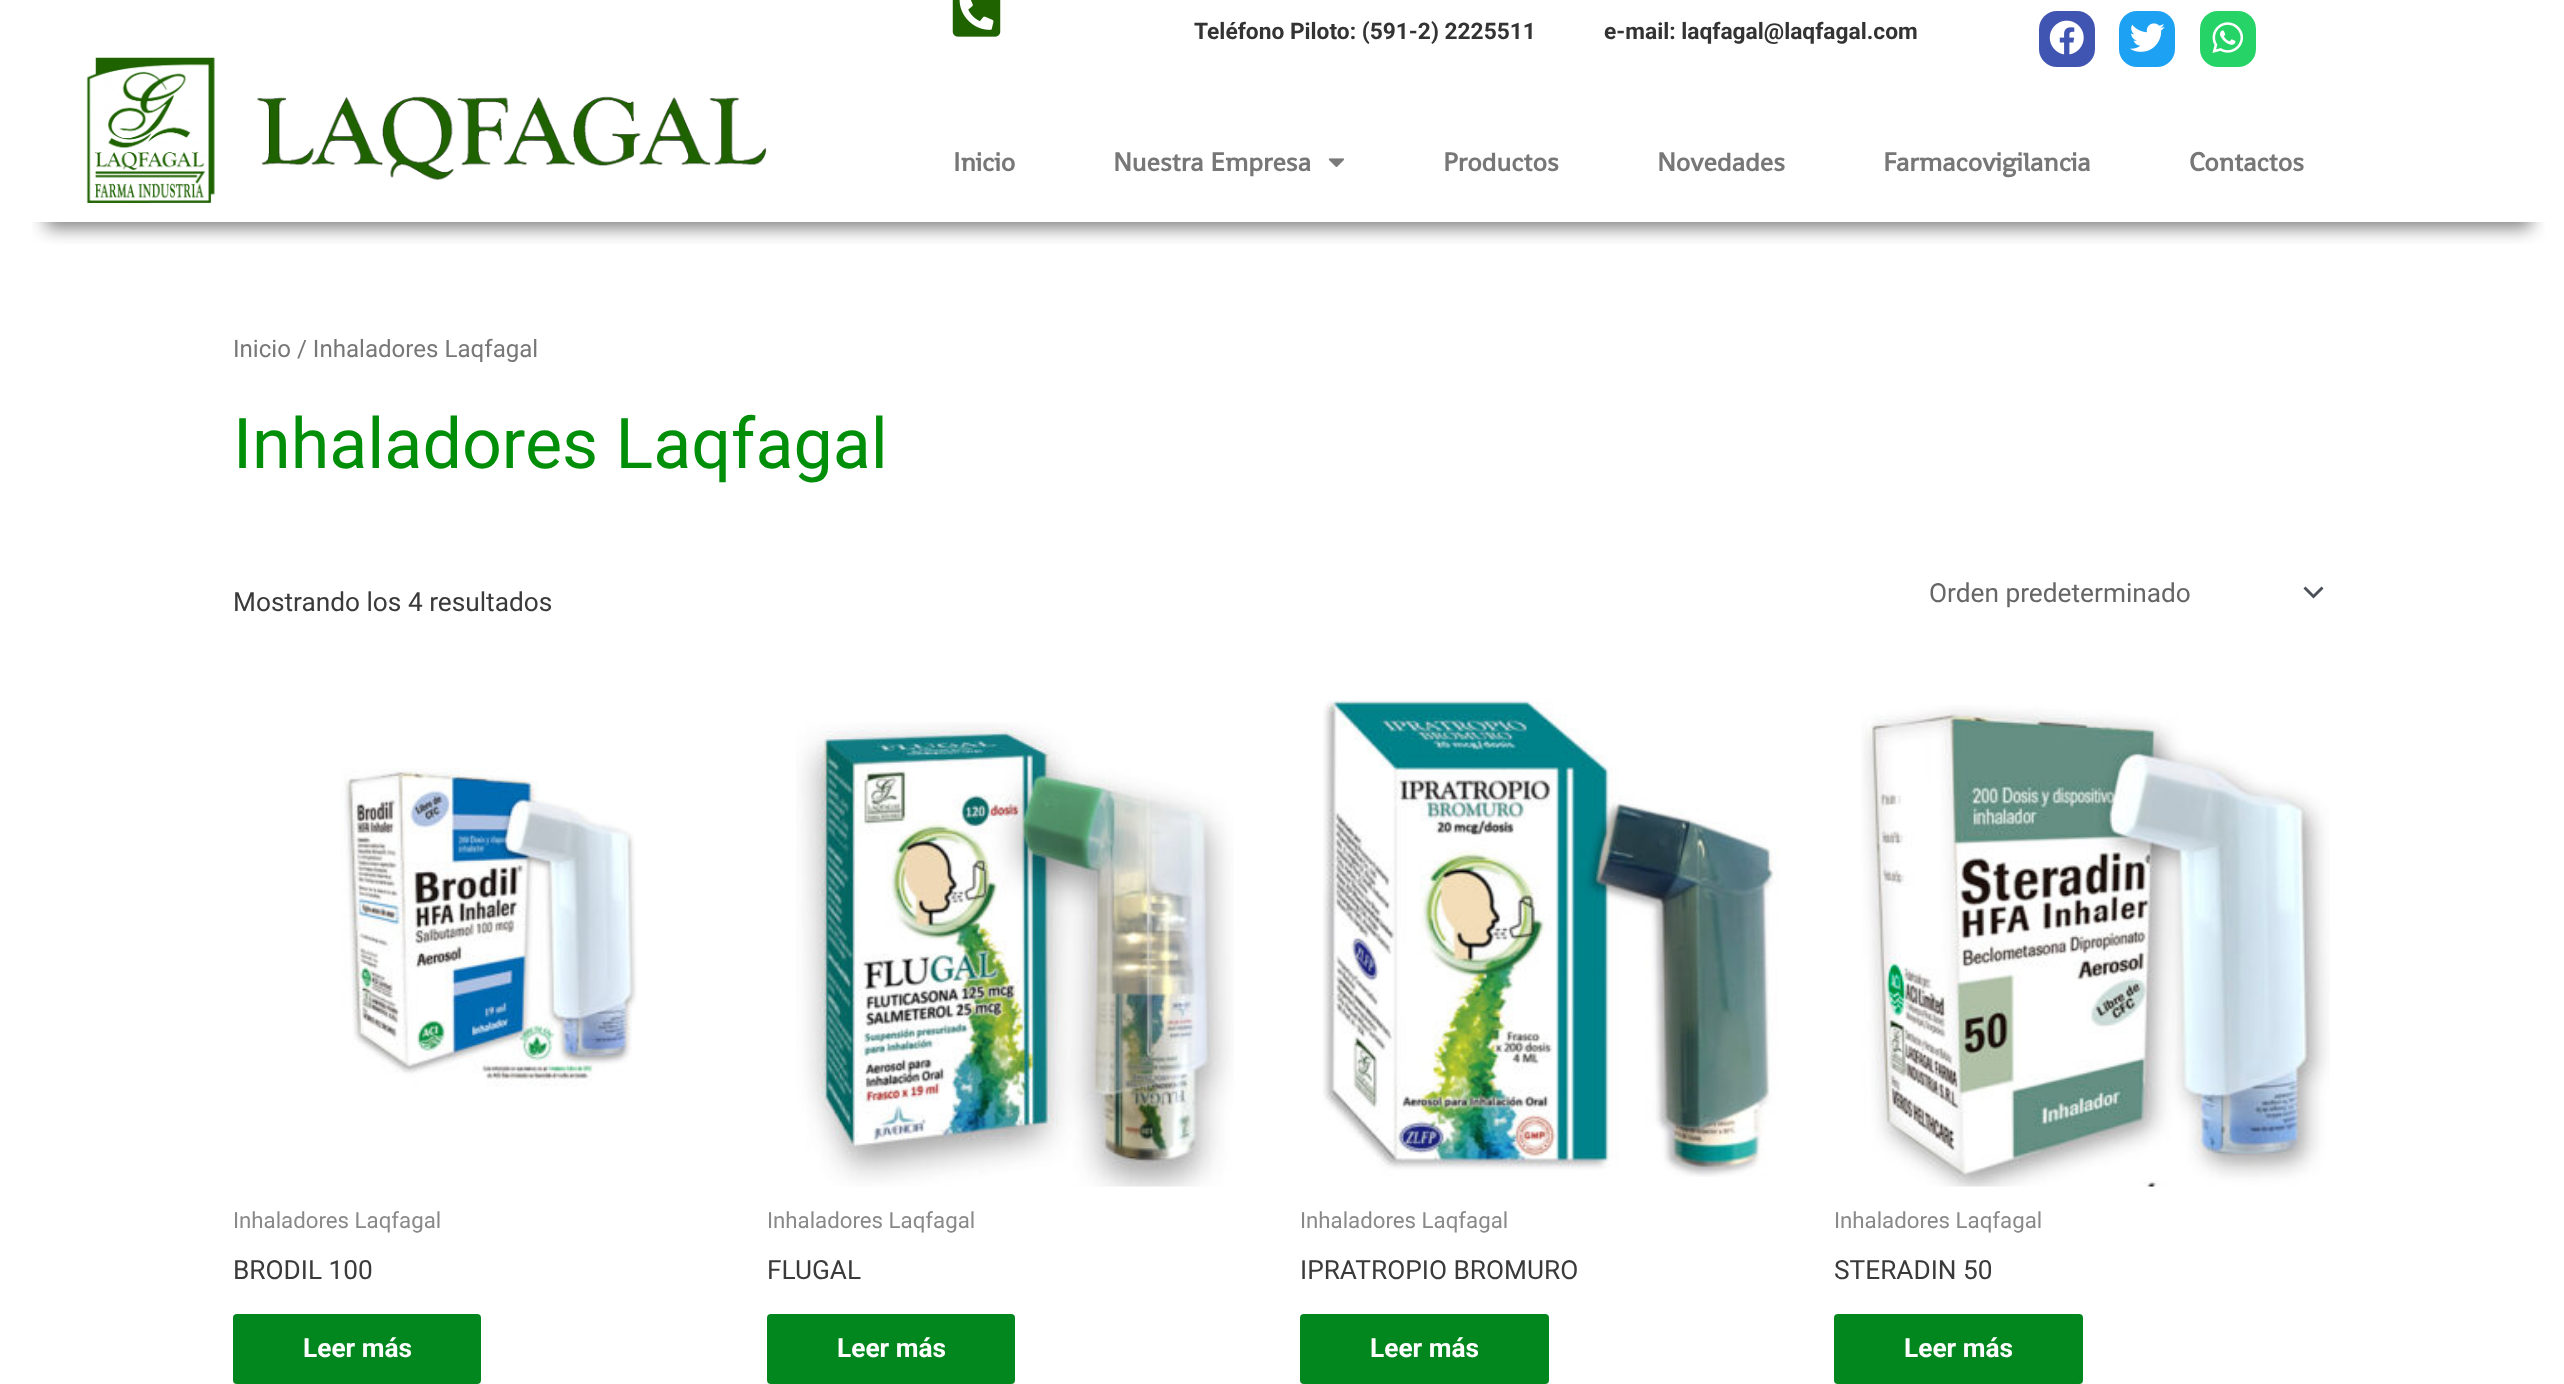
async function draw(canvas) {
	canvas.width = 2564;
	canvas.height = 1384;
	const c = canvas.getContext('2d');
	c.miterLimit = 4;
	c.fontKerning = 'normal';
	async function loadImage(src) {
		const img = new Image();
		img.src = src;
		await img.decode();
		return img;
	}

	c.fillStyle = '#fff';
	c.fillRect(0, 0, 2564, 1384);
	c.drawImage(await loadImage('img1.png'), 952, 0, 49, 37);
	c.font = 'bold 22.75px Roboto';
	c.fillStyle = '#333';
	c.fillText('Teléfono Piloto: (591-2) 2225511', 1194, 39);
	c.fillText('e-mail: laqfagal@laqfagal.com', 1604, 39);
	c.fillStyle = '#4054b2';
	c.beginPath();
	c.roundRect(2039, 11, 56, 56, 18);
	c.fill();
	c.drawImage(await loadImage('img2.png'), 2049, 20, 35, 35);
	c.fillStyle = '#1da1f2';
	c.beginPath();
	c.roundRect(2119, 11, 56, 56, 18);
	c.fill();
	c.drawImage(await loadImage('img3.png'), 2130, 23, 35, 29);
	c.fillStyle = '#25d366';
	c.beginPath();
	c.roundRect(2200, 11, 56, 56, 18);
	c.fill();
	c.drawImage(await loadImage('img4.png'), 2212, 22, 32, 31);
	c.save();
	c.beginPath();
	c.rect(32, 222, 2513, 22);
	c.clip();
	c.fillStyle = '#00000080';
	c.filter = 'blur(9px)';
	c.beginPath();
	c.rect(46, 189, 2485, 39);
	c.fill();
	c.filter = 'none';
	c.restore();
	c.drawImage(await loadImage('img5.png'), 86, 57, 681, 146);
	c.font = 'bold 26.25px Shanti';
	c.fillStyle = '#777';
	c.fillText('Inicio', 953, 171);
	c.fillText('Nuestra Empresa', 1113, 171);
	c.drawImage(await loadImage('img6.png'), 1328, 158, 16, 9);
	for (const [text, x, y] of [
		['Productos', 1443, 171],
		['Novedades', 1657, 171],
		['Farmacovigilancia', 1883, 171],
		['Contactos', 2189, 171],
	]) {
		c.fillText(text, x, y);
	}
	c.font = '24.1px Roboto';
	c.fillText('Inicio / Inhaladores Laqfagal', 233, 357);
	c.font = '70px Roboto';
	c.fillStyle = '#018e08';
	c.fillText('Inhaladores Laqfagal', 233, 468);
	c.font = '26.25px Roboto';
	c.fillStyle = '#3a3a3a';
	c.fillText('Mostrando los 4 resultados', 233, 611);
	c.fillStyle = '#4b4f58';
	c.beginPath();
	c.moveTo(2303.5, 588.5);
	c.lineTo(2313.5, 598.5);
	c.lineTo(2323.5, 588.5);
	c.lineTo(2321.5, 586.5);
	c.lineTo(2313.5, 594.5);
	c.lineTo(2305.5, 586.5);
	c.closePath();
	c.fill();
	c.fillStyle = '#666';
	c.fillText('Orden predeterminado', 1929, 602);
	c.drawImage(await loadImage('img7.png'), 340, 767, 297, 320);
	c.font = '22.25px Roboto';
	c.fillStyle = '#898989';
	c.fillText('Inhaladores Laqfagal', 233, 1228);
	c.font = '26.25px Roboto';
	c.fillStyle = '#3a3a3a';
	c.fillText('BRODIL 100', 233, 1279);
	c.fillStyle = '#01871e';
	c.beginPath();
	c.roundRect(233, 1314, 248, 70, 4);
	c.fill();
	c.font = 'bold 26.25px Roboto';
	c.fillStyle = '#fff';
	c.fillText('Leer más', 303, 1357);
	c.drawImage(await loadImage('img8.png'), 796, 722, 438, 465);
	c.font = '22.25px Roboto';
	c.fillStyle = '#898989';
	c.fillText('Inhaladores Laqfagal', 767, 1228);
	c.font = '26.25px Roboto';
	c.fillStyle = '#3a3a3a';
	c.fillText('FLUGAL', 767, 1279);
	c.fillStyle = '#01871e';
	c.beginPath();
	c.roundRect(767, 1314, 248, 70, 4);
	c.fill();
	c.font = 'bold 26.25px Roboto';
	c.fillStyle = '#fff';
	c.fillText('Leer más', 837, 1357);
	c.drawImage(await loadImage('img9.png'), 1322, 700, 457, 477);
	c.font = '22.25px Roboto';
	c.fillStyle = '#898989';
	c.fillText('Inhaladores Laqfagal', 1300, 1228);
	c.font = '26.25px Roboto';
	c.fillStyle = '#3a3a3a';
	c.fillText('IPRATROPIO BROMURO', 1300, 1279);
	c.fillStyle = '#01871e';
	c.beginPath();
	c.roundRect(1300, 1314, 249, 70, 4);
	c.fill();
	c.font = 'bold 26.25px Roboto';
	c.fillStyle = '#fff';
	c.fillText('Leer más', 1370, 1357);
	c.drawImage(await loadImage('img10.png'), 1861, 705, 469, 482);
	c.font = '22.25px Roboto';
	c.fillStyle = '#898989';
	c.fillText('Inhaladores Laqfagal', 1834, 1228);
	c.font = '26.25px Roboto';
	c.fillStyle = '#3a3a3a';
	c.fillText('STERADIN 50', 1834, 1279);
	c.fillStyle = '#01871e';
	c.beginPath();
	c.roundRect(1834, 1314, 249, 70, 4);
	c.fill();
	c.font = 'bold 26.25px Roboto';
	c.fillStyle = '#fff';
	c.fillText('Leer más', 1904, 1357);
}

draw(document.querySelector('canvas'));
